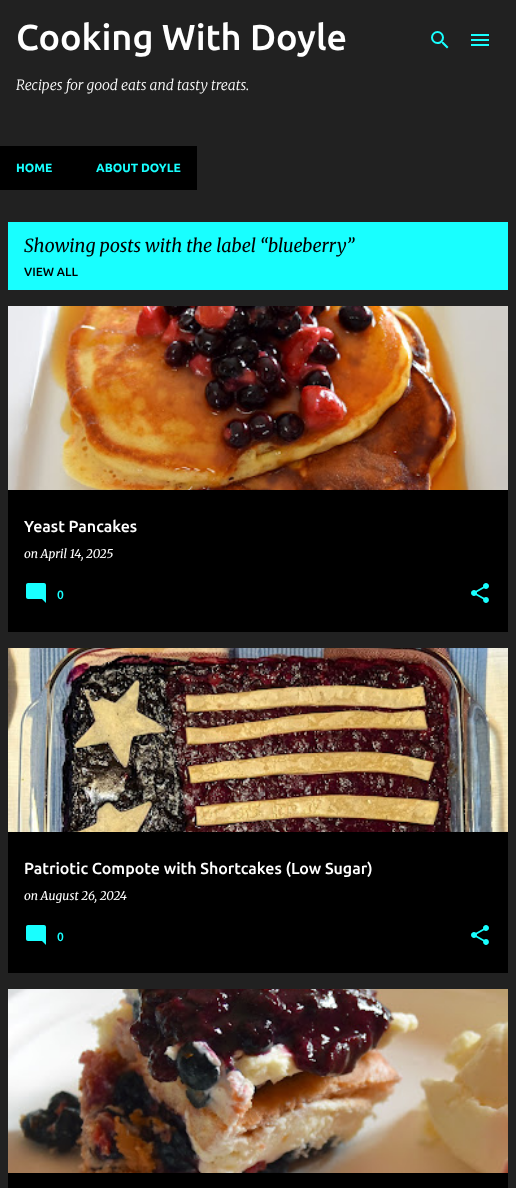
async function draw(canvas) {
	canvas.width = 516;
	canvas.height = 1188;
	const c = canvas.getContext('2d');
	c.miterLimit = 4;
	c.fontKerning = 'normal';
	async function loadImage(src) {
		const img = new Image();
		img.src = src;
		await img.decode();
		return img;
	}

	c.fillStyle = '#212121';
	c.fillRect(0, 0, 516, 1188);
	c.font = '500 36px Ubuntu';
	c.fillStyle = '#fff';
	c.fillText('Cooking With Doyle', 16, 50);
	c.font = 'italic 300 14px Merriweather';
	c.fillText('Recipes for good eats and tasty treats.', 16, 90);
	c.drawImage(await loadImage('img1.png'), 431, 31, 18, 18);
	c.drawImage(await loadImage('img2.png'), 471, 34, 18, 12);
	c.fillStyle = '#000';
	c.fillRect(0, 146, 197, 44);
	c.font = 'bold 12px Ubuntu';
	c.fillStyle = '#18ffff';
	c.fillText('HOME', 16, 172);
	c.fillText('ABOUT DOYLE', 96, 172);
	c.fillRect(8, 222, 500, 68);
	c.font = 'italic 18px Merriweather';
	c.fillStyle = '#000';
	for (const [text, x, y] of [
		['Showing posts with the label “', 24, 252],
		['blueberry', 268, 252],
		['”', 346, 252],
	]) {
		c.fillText(text, x, y);
	}
	c.font = '500 12px Ubuntu';
	c.fillText('VIEW ALL', 24, 276);
	c.fillRect(8, 490, 500, 142);
	c.drawImage(await loadImage('img3.png'), 8, 306, 500, 184);
	c.font = '500 16px Ubuntu';
	c.fillStyle = '#fff';
	c.fillText('Yeast Pancakes', 24, 532);
	c.font = 'italic 12px Merriweather';
	c.fillText('on April 14, 2025', 24, 558);
	c.drawImage(await loadImage('img4.png'), 26, 583, 20, 20);
	c.font = '500 12px Ubuntu';
	c.fillStyle = '#18ffff';
	c.fillText('0', 57, 599);
	c.drawImage(await loadImage('img5.png'), 471, 583, 18, 20);
	c.fillStyle = '#000';
	c.fillRect(8, 832, 500, 141);
	c.drawImage(await loadImage('img6.png'), 8, 648, 500, 184);
	c.font = '500 16px Ubuntu';
	c.fillStyle = '#fff';
	c.fillText('Patriotic Compote with Shortcakes (Low Sugar)', 24, 874);
	c.font = 'italic 12px Merriweather';
	c.fillText('on August 26, 2024', 24, 900);
	c.drawImage(await loadImage('img4.png'), 26, 925, 20, 20);
	c.font = '500 12px Ubuntu';
	c.fillStyle = '#18ffff';
	c.fillText('0', 57, 941);
	c.drawImage(await loadImage('img5.png'), 471, 925, 18, 20);
	c.fillStyle = '#000';
	c.fillRect(8, 1173, 500, 15);
	c.drawImage(await loadImage('img7.png'), 8, 989, 500, 184);
}

draw(document.querySelector('canvas'));
